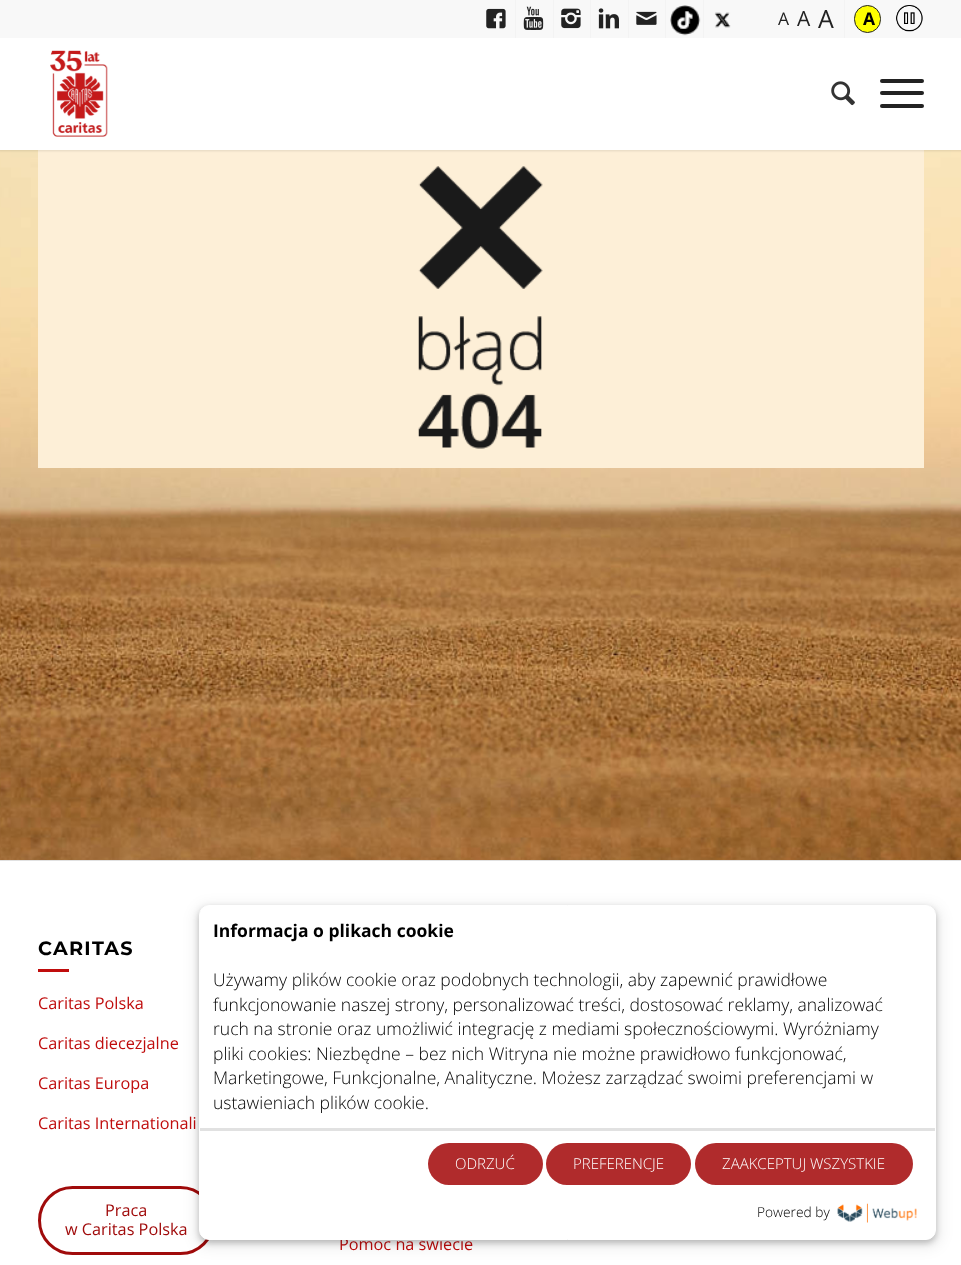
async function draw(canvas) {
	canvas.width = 961;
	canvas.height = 1265;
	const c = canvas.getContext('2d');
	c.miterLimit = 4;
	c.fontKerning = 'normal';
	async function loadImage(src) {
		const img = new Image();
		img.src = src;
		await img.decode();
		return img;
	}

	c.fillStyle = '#fff';
	c.fillRect(0, 0, 961, 1265);
	c.drawImage(await loadImage('img11.png'), 0, 150, 961, 710);
	c.fillStyle = '#fdefd7';
	c.fillRect(38, 150, 886, 318);
	c.fillStyle = '#0000001a';
	c.filter = 'blur(1px)';
	c.beginPath();
	c.rect(-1, -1, 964, 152);
	c.fill();
	c.filter = 'none';
	c.fillStyle = '#f8f8f8';
	c.fillRect(0, 0, 961, 38);
	c.fillStyle = '#f3f3f3';
	c.fillRect(515, 0, 1, 38);
	c.drawImage(await loadImage('img1.png'), 486, 8, 20, 21);
	c.fillRect(553, 0, 1, 38);
	c.drawImage(await loadImage('img2.png'), 523, 6, 21, 24);
	c.fillRect(590, 0, 1, 38);
	c.drawImage(await loadImage('img3.png'), 561, 8, 20, 21);
	c.fillRect(628, 0, 1, 38);
	c.drawImage(await loadImage('img4.png'), 598, 8, 21, 21);
	c.fillRect(665, 0, 1, 38);
	c.drawImage(await loadImage('img5.png'), 636, 11, 21, 14);
	c.fillRect(703, 0, 1, 38);
	c.drawImage(await loadImage('img6.png'), 670, 5, 31, 31);
	c.drawImage(await loadImage('img7.png'), 714, 12, 17, 16);
	c.fillRect(844, 0, 1, 38);
	c.font = '17.5px Open Sans';
	c.fillStyle = '#222';
	c.fillText('A', 778, 25);
	c.font = '21px Open Sans';
	c.fillText('A', 797, 26);
	c.font = '25px Open Sans';
	c.fillText('A', 818, 28);
	c.fillStyle = '#ff0';
	c.beginPath();
	c.roundRect(854.5, 5.5, 26, 27, 13);
	c.fill();
	c.strokeStyle = '#222';
	c.stroke();
	c.font = 'bold 17.5px Open Sans';
	c.fillStyle = '#000';
	c.fillText('A', 863, 25);
	c.drawImage(await loadImage('img8.png'), 896, 5, 27, 27);
	c.fillStyle = '#fff';
	c.fillRect(0, 38, 961, 112);
	c.drawImage(await loadImage('img9.png'), 50, 50, 58, 87);
	c.drawImage(await loadImage('img10.png'), 831, 81, 24, 25);
	c.fillStyle = '#222';
	c.beginPath();
	c.roundRect(880, 91, 44, 4, 2);
	c.fill();
	c.beginPath();
	c.roundRect(880, 79, 44, 4, 2);
	c.fill();
	c.beginPath();
	c.roundRect(880, 104, 44, 4, 2);
	c.fill();
	c.drawImage(await loadImage('img12.png'), 418, 166, 125, 283);
	c.fillStyle = '#e1e1e1';
	c.fillRect(0, 860, 961, 1);
	c.letterSpacing = '1.25px';
	c.font = 'bold 19.25px Montserrat';
	c.fillStyle = '#000';
	c.fillText('CARITAS', 38, 955);
	c.fillStyle = '#c00d0d';
	c.fillRect(38, 969, 31, 3);
	c.letterSpacing = '0px';
	c.font = '16.25px Open Sans';
	for (const [text, x, y] of [
		['Caritas Polska', 38, 1009],
		['Caritas diecezjalne', 38, 1049],
		['Caritas Europa', 38, 1089],
		['Caritas Internationali', 38, 1129],
	]) {
		c.fillText(text, x, y);
	}
	c.beginPath();
	c.roundRect(39.5, 1187.5, 174, 66, 33);
	c.strokeStyle = '#a00b0b';
	c.lineWidth = 3;
	c.stroke();
	c.fillStyle = '#a00b0b';
	c.fillText('Praca', 105, 1216);
	c.fillText('w Caritas Polska', 65, 1235);
	c.fillStyle = '#c00d0d';
	c.fillText('Pomoc na świecie', 339, 1250);
	c.fillStyle = '#0000000d';
	c.filter = 'blur(6px)';
	c.beginPath();
	c.roundRect(193, 903, 750, 347, 16);
	c.fill();
	c.filter = 'none';
	c.fillStyle = '#00000040';
	c.filter = 'blur(3px)';
	c.beginPath();
	c.roundRect(199, 908, 737, 335, 10);
	c.fill();
	c.filter = 'none';
	c.fillStyle = '#fff';
	c.beginPath();
	c.roundRect(199.5, 905.5, 736, 334, 9.5);
	c.fill();
	c.strokeStyle = '#fff';
	c.lineWidth = 1;
	c.stroke();
	c.font = 'bold 17.5px Open Sans';
	c.fillStyle = '#000';
	c.fillText('Informacja o plikach cookie', 213, 937);
	c.font = '300 17.5px Open Sans';
	for (const [text, x, y] of [
		['Używamy plików cookie oraz podobnych technologii, aby zapewnić prawidłowe', 213, 986],
		['funkcjonowanie naszej strony, personalizować treści, dostosować reklamy, analizować', 213, 1011],
		['ruch na stronie oraz umożliwić integrację z mediami społecznościowymi. Wyróżniamy', 213, 1035],
		['pliki cookies: Niezbędne – bez nich Witryna nie możne prawidłowo funkcjonować,', 213, 1060],
		['Marketingowe, Funkcjonalne, Analityczne. Możesz zarządzać swoimi preferencjami w', 213, 1084],
		['ustawieniach plików cookie.', 213, 1109],
	]) {
		c.fillText(text, x, y);
	}
	c.fillStyle = '#e1e1e1';
	c.fillRect(200, 1128, 735, 3);
	c.fillStyle = '#b02b2c';
	c.beginPath();
	c.roundRect(428, 1143, 115, 42, 21);
	c.fill();
	c.font = '300 15px Open Sans';
	c.fillStyle = '#fff';
	c.fillText('ODRZUĆ', 455, 1169);
	c.fillStyle = '#b02b2c';
	c.beginPath();
	c.roundRect(546, 1143, 145, 42, 21);
	c.fill();
	c.fillStyle = '#fff';
	c.fillText('PREFERENCJE', 573, 1169);
	c.fillStyle = '#b02b2c';
	c.beginPath();
	c.roundRect(695, 1143, 218, 42, 21);
	c.fill();
	c.fillStyle = '#fff';
	c.fillText('ZAAKCEPTUJ WSZYSTKIE', 722, 1169);
	c.font = '300 13.75px Open Sans';
	c.fillStyle = '#000';
	c.fillText('Powered by', 757, 1217);
	c.drawImage(await loadImage('img13.png'), 837, 1203, 80, 20);
}

draw(document.querySelector('canvas'));
